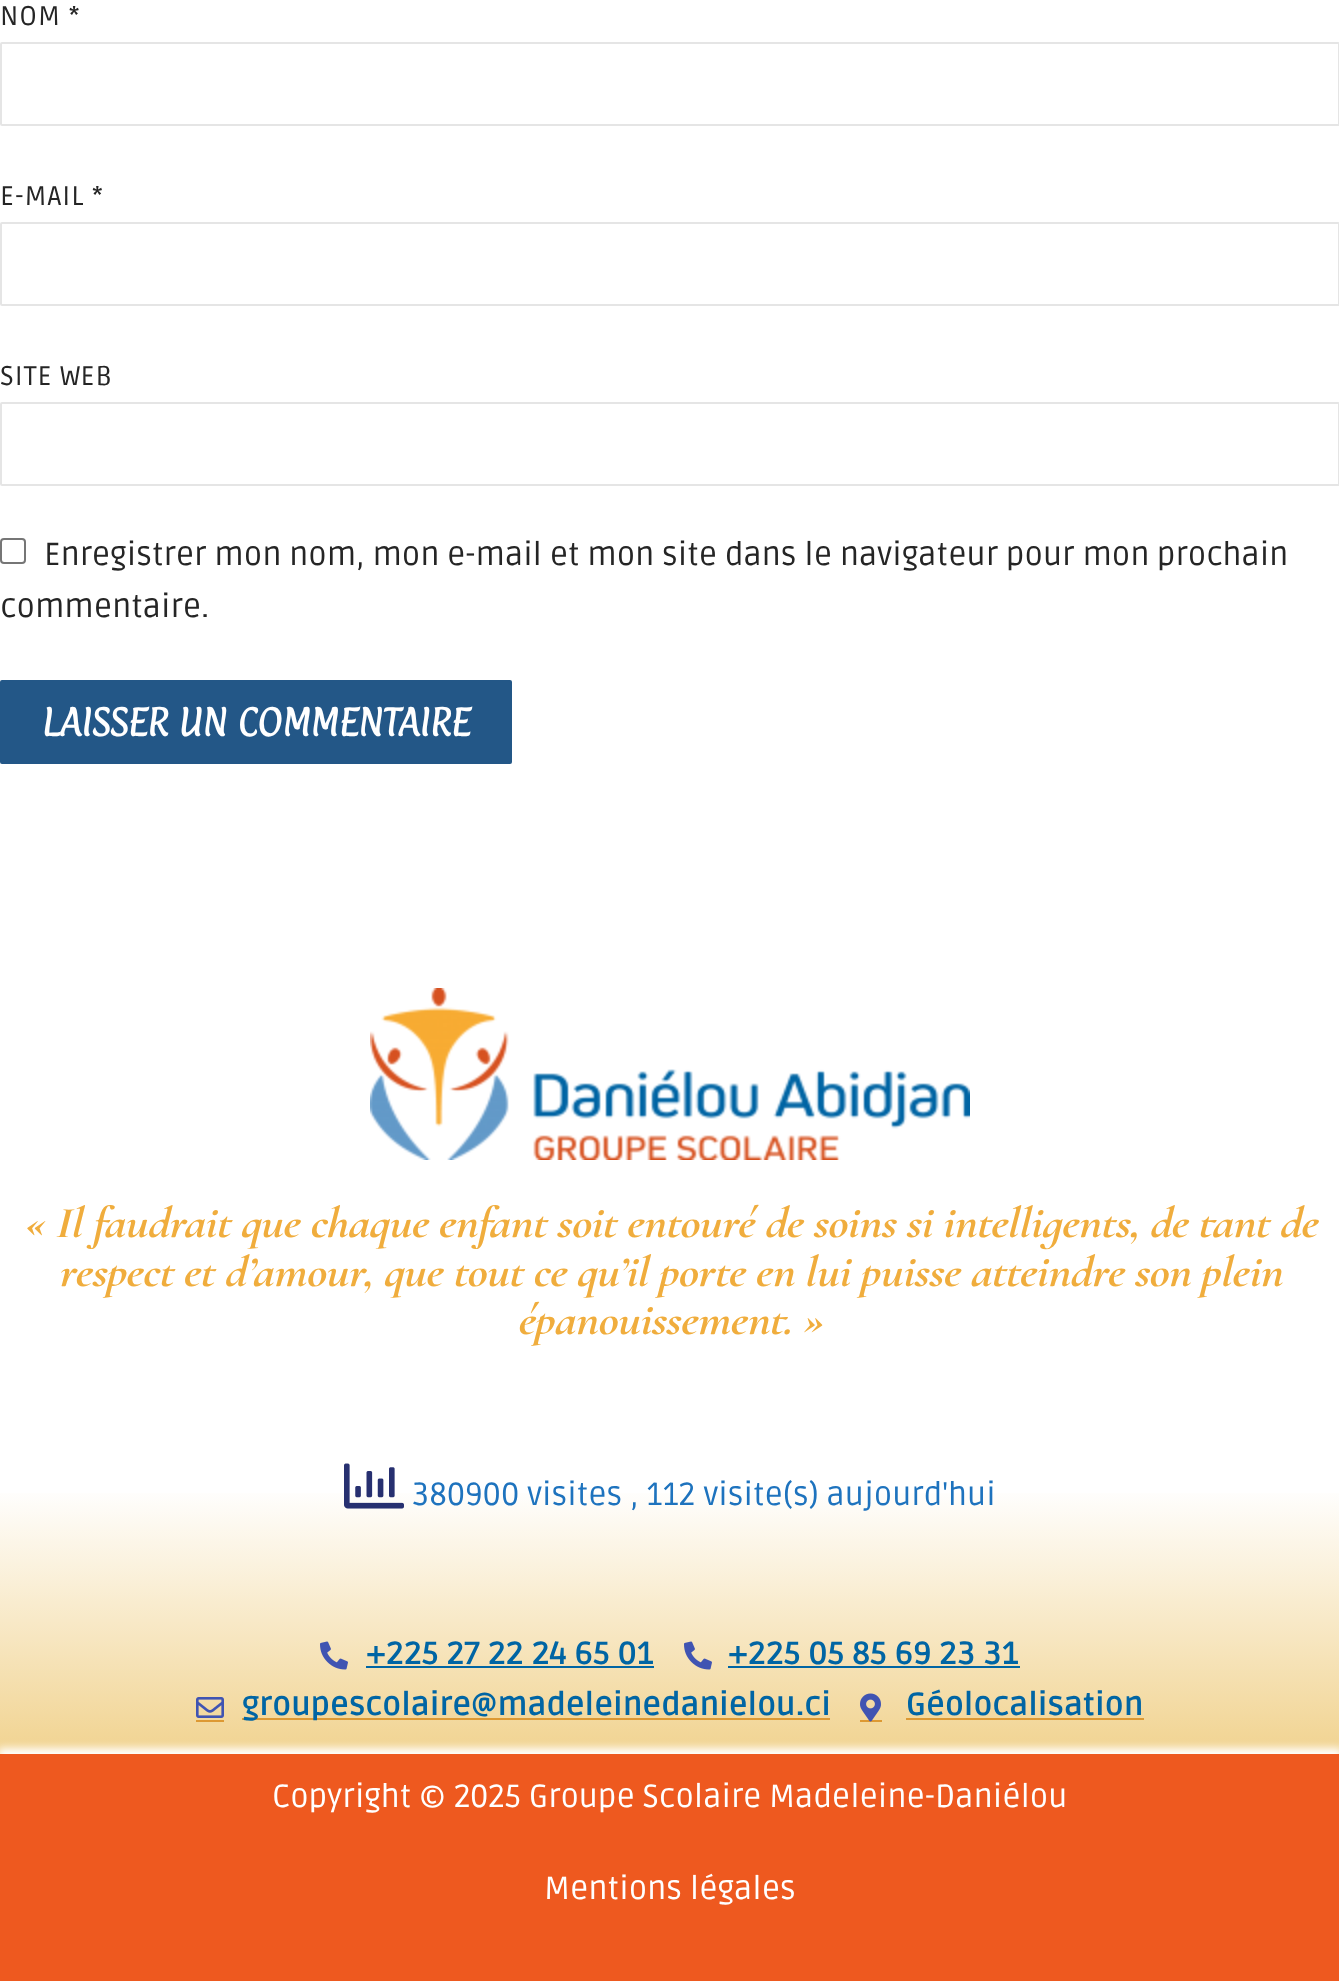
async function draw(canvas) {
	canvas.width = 1339;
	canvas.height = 1981;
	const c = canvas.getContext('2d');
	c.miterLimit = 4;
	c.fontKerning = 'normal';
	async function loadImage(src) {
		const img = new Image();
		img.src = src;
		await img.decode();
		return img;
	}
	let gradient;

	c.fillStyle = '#fff';
	c.fillRect(0, 0, 1339, 1981);
	c.letterSpacing = '1px';
	c.font = '27px Ruda';
	c.fillStyle = '#252525';
	c.fillText('NOM *', 0, 25);
	c.beginPath();
	c.roundRect(1, 43, 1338, 82, 1);
	c.strokeStyle = '#e5e5e5';
	c.lineWidth = 2;
	c.stroke();
	c.fillText('E-MAIL *', 0, 205);
	c.beginPath();
	c.roundRect(1, 223, 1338, 82, 1);
	c.stroke();
	c.fillText('SITE WEB', 0, 385);
	c.beginPath();
	c.roundRect(1, 403, 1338, 82, 1);
	c.stroke();
	c.beginPath();
	c.roundRect(1, 539, 24, 24, 3);
	c.strokeStyle = '#767676';
	c.stroke();
	c.letterSpacing = '0px';
	c.font = '32px Ruda';
	c.fillText('Enregistrer mon nom, mon e-mail et mon site dans le navigateur pour mon prochain', 44, 565);
	c.fillText('commentaire.', 0, 617);
	c.fillStyle = '#235787';
	c.beginPath();
	c.roundRect(0, 680, 512, 84, 2);
	c.fill();
	c.font = 'bold 32px Paprika';
	c.fillStyle = '#fff';
	c.fillText('LAISSER UN COMMENTAIRE', 42, 736);
	gradient = c.createLinearGradient(670, 968, 670, 1754);
	gradient.addColorStop(0.66, '#fff');
	gradient.addColorStop(1, '#f1d390');
	c.fillStyle = gradient;
	c.fillRect(0, 1493, 1339, 261);
	c.drawImage(await loadImage('img1.png'), 370, 988, 600, 172);
	c.font = 'italic bold 44px Cormorant Upright';
	c.fillStyle = '#f0ad3d';
	for (const [text, x, y] of [
		['« Il faudrait que chaque enfant soit entouré de soins si intelligents, de tant de', 23, 1237],
		['respect et d’amour, que tout ce qu’il porte en lui puisse atteindre son plein', 58, 1286],
		['épanouissement. »', 517, 1334],
	]) {
		c.fillText(text, x, y);
	}
	c.drawImage(await loadImage('img2.png'), 344, 1463, 60, 46);
	c.font = '32px Ruda';
	c.fillStyle = '#1e73be';
	c.fillText('380900 visites , 112 visite(s) aujourd\'hui', 412, 1505);
	c.drawImage(await loadImage('img3.png'), 320, 1641, 28, 29);
	c.font = 'bold 32px Ruda';
	c.fillStyle = '#0065a4';
	c.fillText('+225 27 22 24 65 01', 366, 1664);
	c.fillRect(366, 1666, 288, 2);
	c.drawImage(await loadImage('img3.png'), 684, 1641, 28, 29);
	c.fillText('+225 05 85 69 23 31', 728, 1664);
	c.fillRect(728, 1666, 292, 2);
	c.drawImage(await loadImage('img4.png'), 196, 1697, 28, 21);
	c.fillStyle = '#d93';
	c.fillRect(196, 1720, 28, 2);
	c.fillRect(242, 1718, 588, 2);
	c.fillStyle = '#0065a4';
	c.fillText('groupescolaire@madeleinedanielou.ci', 242, 1715);
	c.fillStyle = '#d93';
	c.fillRect(860, 1720, 22, 2);
	c.drawImage(await loadImage('img5.png'), 860, 1693, 21, 29);
	c.fillStyle = '#0065a4';
	c.fillText('Géolocalisation', 906, 1715);
	c.fillStyle = '#d93';
	c.fillRect(906, 1718, 238, 2);
	c.fillStyle = '#fff';
	c.filter = 'blur(4px)';
	c.beginPath();
	c.rect(-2, 1748, 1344, 232);
	c.fill();
	c.filter = 'none';
	c.fillStyle = '#ee591f';
	c.fillRect(0, 1754, 1339, 227);
	c.font = '32px Ruda';
	c.fillStyle = '#fff';
	c.fillText('Copyright © 2025 Groupe Scolaire Madeleine-Daniélou', 272, 1807);
	c.fillText('Mentions légales', 544, 1899);
}

draw(document.querySelector('canvas'));
